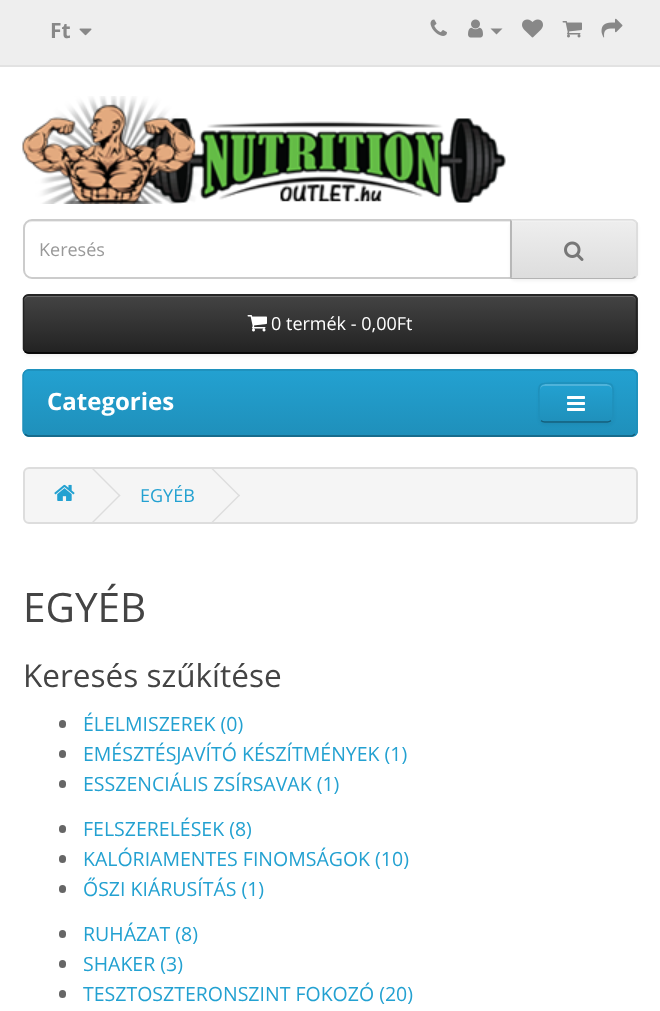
async function draw(canvas) {
	canvas.width = 660;
	canvas.height = 1011;
	const c = canvas.getContext('2d');
	c.miterLimit = 4;
	c.fontKerning = 'normal';
	async function loadImage(src) {
		const img = new Image();
		img.src = src;
		await img.decode();
		return img;
	}
	let gradient;

	c.fillStyle = '#fff';
	c.fillRect(0, 0, 660, 1011);
	c.fillStyle = '#eee';
	c.fillRect(0, 0, 660, 65);
	c.fillStyle = '#e2e2e2';
	c.fillRect(0, 65, 660, 2);
	c.font = 'bold 21px Open Sans';
	c.fillStyle = '#888';
	c.fillText('Ft', 50, 38);
	c.drawImage(await loadImage('img1.png'), 79, 28, 13, 8);
	c.drawImage(await loadImage('img2.png'), 430, 19, 17, 17);
	c.drawImage(await loadImage('img3.png'), 468, 19, 15, 19);
	c.beginPath();
	c.moveTo(490.5, 28.5);
	c.lineTo(502.5, 28.5);
	c.lineTo(496.5, 34.5);
	c.closePath();
	c.fill();
	c.drawImage(await loadImage('img4.png'), 522, 19, 21, 19);
	c.drawImage(await loadImage('img5.png'), 562, 21, 20, 17);
	c.drawImage(await loadImage('img6.png'), 601, 18, 22, 20);
	c.drawImage(await loadImage('img7.png'), 22, 96, 484, 108);
	c.fillStyle = '#ececec';
	c.beginPath();
	c.moveTo(32, 222);
	c.lineTo(510, 222);
	c.lineTo(510, 221);
	c.lineTo(32, 221);
	c.bezierCurveTo(28, 221, 24, 225, 24, 229);
	c.lineTo(24, 230);
	c.bezierCurveTo(24, 225, 27, 222, 32, 222);
	c.closePath();
	c.fill();
	c.beginPath();
	c.roundRect(24, 220, 487, 58, [8, 0, 0, 8]);
	c.strokeStyle = '#ccc';
	c.lineWidth = 2;
	c.stroke();
	c.font = '18px Open Sans';
	c.fillStyle = '#999';
	c.fillText('Keresés', 39, 256);
	c.fillStyle = '#0000000d';
	c.filter = 'blur(1.5px)';
	c.beginPath();
	c.roundRect(510, 221, 128, 60, 6);
	c.fill();
	c.filter = 'none';
	c.fillStyle = '#e7e7e7';
	c.beginPath();
	c.roundRect(510, 219, 128, 60, [0, 6, 6, 0]);
	c.fill();
	c.save();
	c.beginPath();
	c.roundRect(510, 219, 128, 60, [0, 6, 6, 0]);
	c.clip();
	gradient = c.createLinearGradient(574, 221, 574, 278);
	gradient.addColorStop(0, '#eee');
	gradient.addColorStop(1, '#ddd');
	c.fillStyle = gradient;
	c.fillRect(511, 221, 127, 57);
	c.restore();
	c.fillStyle = '#f1f1f1';
	c.beginPath();
	c.moveTo(512, 222);
	c.lineTo(632, 222);
	c.bezierCurveTo(634, 222, 636, 224, 636, 226);
	c.bezierCurveTo(636, 223, 634, 221, 631, 221);
	c.lineTo(512, 221);
	c.closePath();
	c.fill();
	c.fillStyle = '#ddd';
	c.beginPath();
	c.moveTo(510, 219);
	c.lineTo(512, 221);
	c.lineTo(512, 220);
	c.lineTo(632, 220);
	c.lineTo(635, 222);
	c.lineTo(636, 221);
	c.bezierCurveTo(635, 220, 633, 219, 632, 219);
	c.closePath();
	c.fill();
	c.beginPath();
	c.moveTo(638, 275);
	c.lineTo(636, 277);
	c.lineTo(635, 276);
	c.bezierCurveTo(636, 275, 636, 274, 636, 273);
	c.lineTo(636, 225);
	c.bezierCurveTo(636, 224, 636, 223, 635, 222);
	c.lineTo(636, 221);
	c.lineTo(638, 223);
	c.closePath();
	c.fill();
	c.fillStyle = '#b3b3b3';
	c.beginPath();
	c.moveTo(632, 279);
	c.bezierCurveTo(633, 279, 635, 278, 636, 277);
	c.lineTo(635, 276);
	c.lineTo(632, 278);
	c.lineTo(512, 278);
	c.lineTo(512, 277);
	c.lineTo(510, 279);
	c.closePath();
	c.fill();
	c.fillStyle = '#b7b7b7';
	c.beginPath();
	c.moveTo(510, 219);
	c.lineTo(510, 279);
	c.lineTo(512, 277);
	c.lineTo(512, 221);
	c.closePath();
	c.fill();
	c.drawImage(await loadImage('img8.png'), 564, 241, 20, 20);
	c.fillStyle = '#0000000d';
	c.filter = 'blur(1.5px)';
	c.beginPath();
	c.roundRect(23, 296, 615, 60, 6);
	c.fill();
	c.filter = 'none';
	c.fillStyle = '#363636';
	c.beginPath();
	c.roundRect(23, 294, 615, 60, 6);
	c.fill();
	c.save();
	c.beginPath();
	c.roundRect(23, 294, 615, 60, 6);
	c.clip();
	gradient = c.createLinearGradient(330, 295, 330, 353);
	gradient.addColorStop(0, '#444');
	gradient.addColorStop(1, '#222');
	c.fillStyle = gradient;
	c.fillRect(23, 296, 615, 57);
	c.restore();
	c.fillStyle = '#696969';
	c.beginPath();
	c.moveTo(28, 297);
	c.lineTo(632, 297);
	c.bezierCurveTo(634, 297, 636, 299, 636, 302);
	c.lineTo(636, 301);
	c.bezierCurveTo(636, 298, 634, 296, 631, 296);
	c.lineTo(29, 296);
	c.bezierCurveTo(26, 296, 24, 298, 24, 301);
	c.lineTo(24, 302);
	c.bezierCurveTo(24, 299, 26, 297, 28, 297);
	c.closePath();
	c.fill();
	c.beginPath();
	c.moveTo(635, 351.5);
	c.bezierCurveTo(634, 352.5, 633, 353, 631.5, 353);
	c.lineTo(28.5, 353);
	c.bezierCurveTo(27, 353, 26, 352.5, 25, 351.5);
	c.strokeStyle = '#000';
	c.lineWidth = 1.5;
	c.stroke();
	c.beginPath();
	c.moveTo(25, 351.5);
	c.lineTo(23.5, 349);
	c.lineTo(23.5, 298.5);
	c.bezierCurveTo(24, 297, 25, 296, 26, 295.5);
	c.lineTo(28.5, 295);
	c.lineTo(631.5, 295);
	c.lineTo(634, 295.5);
	c.bezierCurveTo(635, 296, 636, 297, 636.5, 298.5);
	c.lineTo(636.5, 349);
	c.lineTo(635, 351.5);
	c.strokeStyle = '#222';
	c.stroke();
	c.drawImage(await loadImage('img9.png'), 247, 315, 20, 17);
	c.fillStyle = '#fff';
	c.fillText('0 termék - 0,00Ft', 271, 330);
	c.fillStyle = '#229ac8';
	c.beginPath();
	c.roundRect(23, 369, 615, 68, 6);
	c.fill();
	c.save();
	c.beginPath();
	c.roundRect(23, 369, 615, 68, 6);
	c.clip();
	gradient = c.createLinearGradient(330, 370, 330, 435);
	gradient.addColorStop(0, '#23a1d1');
	gradient.addColorStop(1, '#1f90bb');
	c.fillStyle = gradient;
	c.fillRect(23, 371, 615, 64);
	c.restore();
	c.beginPath();
	c.moveTo(635, 434);
	c.bezierCurveTo(634, 435, 633, 436, 631.5, 436);
	c.lineTo(28.5, 436);
	c.bezierCurveTo(27, 436, 26, 435, 25, 434);
	c.strokeStyle = '#145e7a';
	c.stroke();
	c.beginPath();
	c.moveTo(25, 434);
	c.bezierCurveTo(24, 433, 23, 432, 23, 430.5);
	c.lineTo(23, 375);
	c.bezierCurveTo(23, 373.5, 24, 372.5, 25, 371.5);
	c.bezierCurveTo(26, 370.5, 27, 370, 28.5, 370);
	c.lineTo(631.5, 370);
	c.bezierCurveTo(633, 370, 634, 370.5, 635, 371.5);
	c.bezierCurveTo(636, 372.5, 637, 373.5, 637, 375);
	c.lineTo(637, 430.5);
	c.bezierCurveTo(637, 432, 636, 433, 635, 434);
	c.strokeStyle = '#1f90bb';
	c.stroke();
	c.font = 'bold 24px Open Sans';
	c.fillStyle = '#fff';
	c.fillText('Categories', 47, 410);
	c.fillStyle = '#0000000d';
	c.filter = 'blur(1.5px)';
	c.beginPath();
	c.roundRect(539, 384, 75, 41, 6);
	c.fill();
	c.filter = 'none';
	c.fillStyle = '#229ac8';
	c.beginPath();
	c.roundRect(539, 383, 75, 40, 6);
	c.fill();
	c.save();
	c.beginPath();
	c.roundRect(539, 383, 75, 40, 6);
	c.clip();
	gradient = c.createLinearGradient(576, 384, 576, 422);
	gradient.addColorStop(0, '#23a1d1');
	gradient.addColorStop(1, '#1f90bb');
	c.fillStyle = gradient;
	c.fillRect(539, 384, 75, 38);
	c.restore();
	c.fillStyle = '#4fb3da';
	c.beginPath();
	c.moveTo(544, 386);
	c.lineTo(608, 386);
	c.bezierCurveTo(610, 386, 612, 388, 612, 390);
	c.bezierCurveTo(612, 382, 602, 384, 597, 384);
	c.lineTo(555, 384);
	c.bezierCurveTo(550, 384, 540, 382, 540, 390);
	c.bezierCurveTo(540, 388, 542, 386, 544, 386);
	c.closePath();
	c.fill();
	c.beginPath();
	c.moveTo(611, 420.5);
	c.bezierCurveTo(610, 421.5, 609, 422, 607.5, 422);
	c.lineTo(544.5, 422);
	c.bezierCurveTo(543, 422, 542, 421.5, 541, 420.5);
	c.strokeStyle = '#145e7a';
	c.stroke();
	c.beginPath();
	c.moveTo(541, 420.5);
	c.bezierCurveTo(538.5, 418.5, 539, 415, 539, 412);
	c.lineTo(539, 403);
	c.bezierCurveTo(539, 383, 536, 383, 555, 383);
	c.lineTo(597, 383);
	c.bezierCurveTo(616, 383, 613, 383, 613, 403);
	c.lineTo(613, 412);
	c.bezierCurveTo(613, 415, 613.5, 418.5, 611, 420.5);
	c.strokeStyle = '#1f90bb';
	c.stroke();
	c.drawImage(await loadImage('img10.png'), 567, 396, 18, 15);
	c.fillStyle = '#f5f5f5';
	c.beginPath();
	c.roundRect(24, 468, 613, 55, 5);
	c.fill();
	c.strokeStyle = '#ddd';
	c.lineWidth = 2;
	c.stroke();
	c.drawImage(await loadImage('img11.png'), 54, 484, 21, 17);
	c.fillStyle = '#ddd';
	c.beginPath();
	c.moveTo(92, 469);
	c.lineTo(93, 468);
	c.lineTo(120.5, 495.5);
	c.lineTo(119.5, 496.5);
	c.closePath();
	c.fill();
	c.beginPath();
	c.moveTo(92, 522);
	c.lineTo(119.5, 494.5);
	c.lineTo(120.5, 495.5);
	c.lineTo(93, 523);
	c.closePath();
	c.fill();
	c.font = '18px Open Sans';
	c.fillStyle = '#23a1d1';
	c.fillText('EGYÉB', 140, 502);
	c.fillStyle = '#ddd';
	c.beginPath();
	c.moveTo(211.5, 469);
	c.lineTo(212.5, 468);
	c.lineTo(240, 495.5);
	c.lineTo(239, 496.5);
	c.closePath();
	c.fill();
	c.beginPath();
	c.moveTo(211.5, 522);
	c.lineTo(239, 494.5);
	c.lineTo(240, 495.5);
	c.lineTo(212.5, 523);
	c.closePath();
	c.fill();
	c.font = '40.5px Open Sans';
	c.fillStyle = '#444';
	c.fillText('EGYÉB', 23, 622);
	c.font = '31.5px Open Sans';
	c.fillText('Keresés szűkítése', 23, 687);
	c.fillStyle = '#666';
	c.beginPath();
	c.roundRect(59, 720, 7, 8, 3.5);
	c.fill();
	c.font = '19.5px Open Sans';
	c.fillStyle = '#23a1d1';
	c.fillText('ÉLELMISZEREK (0)', 83, 731);
	c.fillStyle = '#666';
	c.beginPath();
	c.roundRect(59, 750, 7, 8, 3.5);
	c.fill();
	c.fillStyle = '#23a1d1';
	c.fillText('EMÉSZTÉSJAVÍTÓ KÉSZÍTMÉNYEK (1)', 83, 761);
	c.fillStyle = '#666';
	c.beginPath();
	c.roundRect(59, 780, 7, 8, 3.5);
	c.fill();
	c.fillStyle = '#23a1d1';
	c.fillText('ESSZENCIÁLIS ZSÍRSAVAK (1)', 83, 791);
	c.fillStyle = '#666';
	c.beginPath();
	c.roundRect(59, 825, 7, 8, 3.5);
	c.fill();
	c.fillStyle = '#23a1d1';
	c.fillText('FELSZERELÉSEK (8)', 83, 836);
	c.fillStyle = '#666';
	c.beginPath();
	c.roundRect(59, 855, 7, 8, 3.5);
	c.fill();
	c.fillStyle = '#23a1d1';
	c.fillText('KALÓRIAMENTES FINOMSÁGOK (10)', 83, 866);
	c.fillStyle = '#666';
	c.beginPath();
	c.roundRect(59, 885, 7, 8, 3.5);
	c.fill();
	c.fillStyle = '#23a1d1';
	c.fillText('ŐSZI KIÁRUSÍTÁS (1)', 83, 896);
	c.fillStyle = '#666';
	c.beginPath();
	c.roundRect(59, 930, 7, 8, 3.5);
	c.fill();
	c.fillStyle = '#23a1d1';
	c.fillText('RUHÁZAT (8)', 83, 941);
	c.fillStyle = '#666';
	c.beginPath();
	c.roundRect(59, 960, 7, 8, 3.5);
	c.fill();
	c.fillStyle = '#23a1d1';
	c.fillText('SHAKER (3)', 83, 971);
	c.fillStyle = '#666';
	c.beginPath();
	c.roundRect(59, 990, 7, 8, 3.5);
	c.fill();
	c.fillStyle = '#23a1d1';
	c.fillText('TESZTOSZTERONSZINT FOKOZÓ (20)', 83, 1001);
}

draw(document.querySelector('canvas'));
